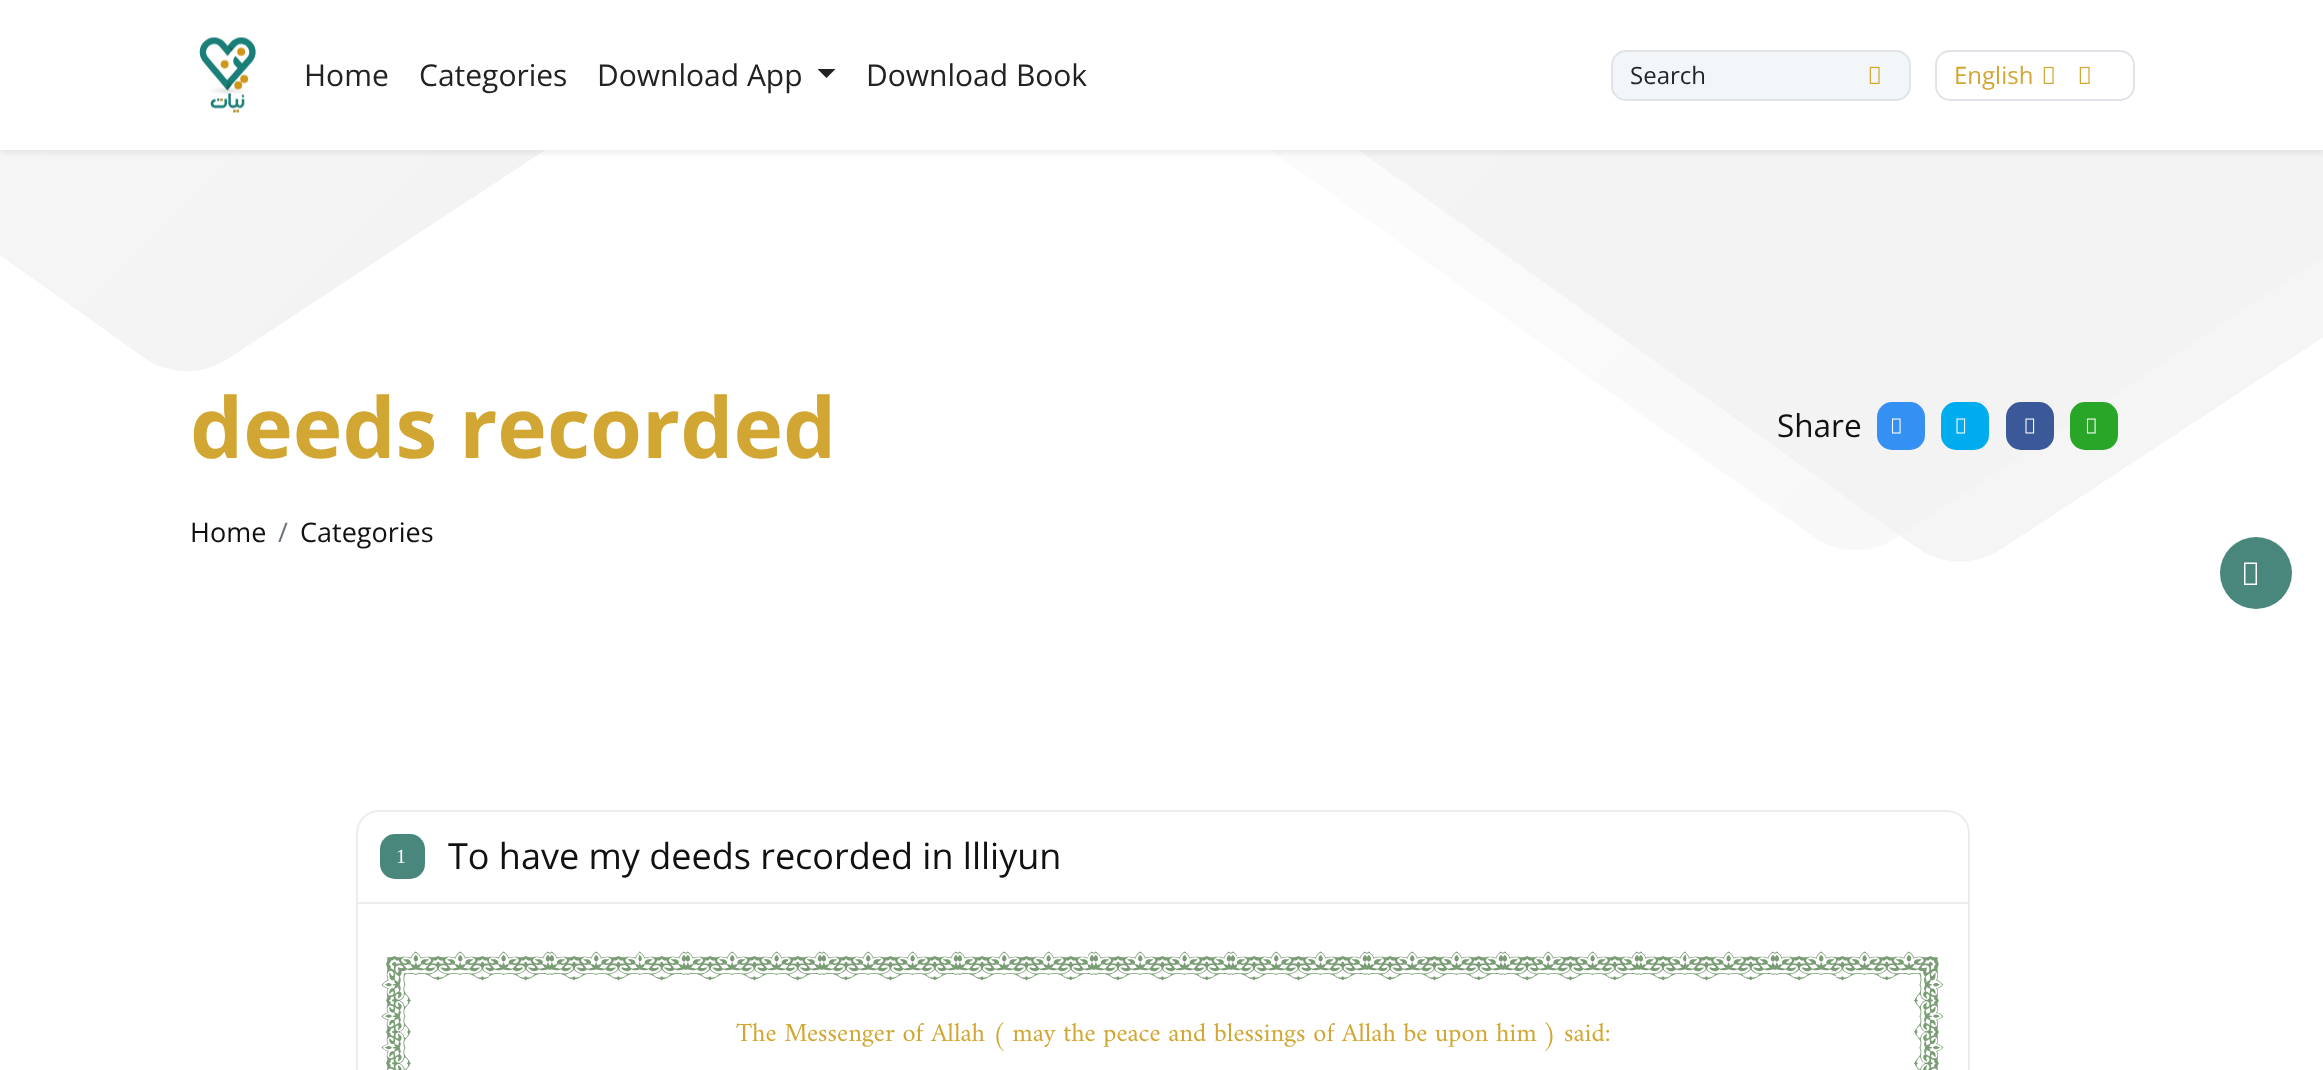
async function draw(canvas) {
	canvas.width = 2323;
	canvas.height = 1070;
	const c = canvas.getContext('2d');
	c.miterLimit = 4;
	c.fontKerning = 'normal';
	async function loadImage(src) {
		const img = new Image();
		img.src = src;
		await img.decode();
		return img;
	}

	c.fillStyle = '#fff';
	c.fillRect(0, 0, 2323, 1070);
	c.drawImage(await loadImage('img4.png'), 0, 150, 2323, 412);
	c.fillStyle = '#00000012';
	c.filter = 'blur(3px)';
	c.beginPath();
	c.rect(0, 3, 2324, 150);
	c.fill();
	c.filter = 'none';
	c.fillStyle = '#fff';
	c.fillRect(0, 0, 2323, 150);
	c.drawImage(await loadImage('img1.png'), 199, 37, 57, 76);
	c.font = '30px Open Sans';
	c.fillStyle = '#222';
	for (const [text, x, y] of [
		['Home', 304, 86],
		['Categories', 419, 86],
		['Download App', 597, 86],
	]) {
		c.fillText(text, x, y);
	}
	c.beginPath();
	c.moveTo(817.5, 69);
	c.lineTo(835.5, 69);
	c.lineTo(826.5, 78);
	c.closePath();
	c.fill();
	c.fillText('Download Book', 866, 86);
	c.fillStyle = '#f3f6f9';
	c.beginPath();
	c.roundRect(1612, 51, 298, 49, 14);
	c.fill();
	c.strokeStyle = '#e0e3e7';
	c.lineWidth = 2;
	c.stroke();
	c.font = '24px Open Sans';
	c.fillStyle = '#212529';
	c.fillText('Search', 1630, 84);
	c.drawImage(await loadImage('img2.png'), 1869, 66, 11, 18);
	c.beginPath();
	c.roundRect(1936, 51, 198, 49, 14);
	c.stroke();
	c.fillStyle = '#d1a632';
	c.fillText('English', 1954, 84);
	c.drawImage(await loadImage('img3.png'), 2043, 66, 11, 18);
	c.drawImage(await loadImage('img3.png'), 2079, 66, 11, 18);
	c.font = 'bold 84px Open Sans';
	c.fillText('deeds recorded', 190, 458);
	c.font = '31.5px Open Sans';
	c.fillStyle = '#111';
	c.fillText('Share', 1777, 437);
	c.fillStyle = '#3490f3';
	c.beginPath();
	c.roundRect(1877, 402, 48, 48, 15);
	c.fill();
	c.drawImage(await loadImage('img5.png'), 1891, 418, 10, 16);
	c.fillStyle = '#00aced';
	c.beginPath();
	c.roundRect(1941, 402, 48, 48, 15);
	c.fill();
	c.drawImage(await loadImage('img6.png'), 1956, 418, 10, 16);
	c.fillStyle = '#3b5998';
	c.beginPath();
	c.roundRect(2006, 402, 48, 48, 15);
	c.fill();
	c.drawImage(await loadImage('img7.png'), 2025, 418, 10, 16);
	c.fillStyle = '#29a628';
	c.beginPath();
	c.roundRect(2070, 402, 48, 48, 15);
	c.fill();
	c.drawImage(await loadImage('img8.png'), 2086, 418, 10, 16);
	c.font = '27px Open Sans';
	c.fillStyle = '#111';
	c.fillText('Home', 190, 542);
	c.fillStyle = '#6c757d';
	c.fillText('/', 278, 542);
	c.fillStyle = '#111';
	c.fillText('Categories', 300, 542);
	c.fillStyle = '#49877c';
	c.beginPath();
	c.arc(2256, 573, 36, 0, 2 * Math.PI);
	c.fill();
	c.fillStyle = '#fff';
	c.beginPath();
	c.moveTo(2244, 585);
	c.lineTo(2244, 562.5);
	c.lineTo(2257, 562.5);
	c.lineTo(2257, 585);
	c.closePath();
	c.moveTo(2245.5, 583.5);
	c.lineTo(2255.5, 583.5);
	c.lineTo(2255.5, 564);
	c.lineTo(2245.5, 564);
	c.closePath();
	c.fill();
	c.beginPath();
	c.roundRect(357, 811, 1612, 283, 22);
	c.strokeStyle = '#ededed';
	c.stroke();
	c.fillStyle = '#ededed';
	c.fillRect(357, 902, 1611, 2);
	c.fillStyle = '#49877c';
	c.beginPath();
	c.roundRect(380, 834, 45, 45, 15);
	c.fill();
	c.font = '20px Liberation Serif';
	c.fillStyle = '#fff';
	c.fillText('1', 396, 863);
	c.font = '36px Open Sans';
	c.fillStyle = '#111';
	c.fillText('To have my deeds recorded in llliyun', 448, 869);
	c.drawImage(await loadImage('img9.png'), 381, 951, 1563, 119);
	c.font = '26.4px Amiri';
	c.fillStyle = '#d1a632';
	c.fillText('The Messenger of Allah ( may the peace and blessings of Allah be upon him ) said:', 736, 1041);
}

draw(document.querySelector('canvas'));
